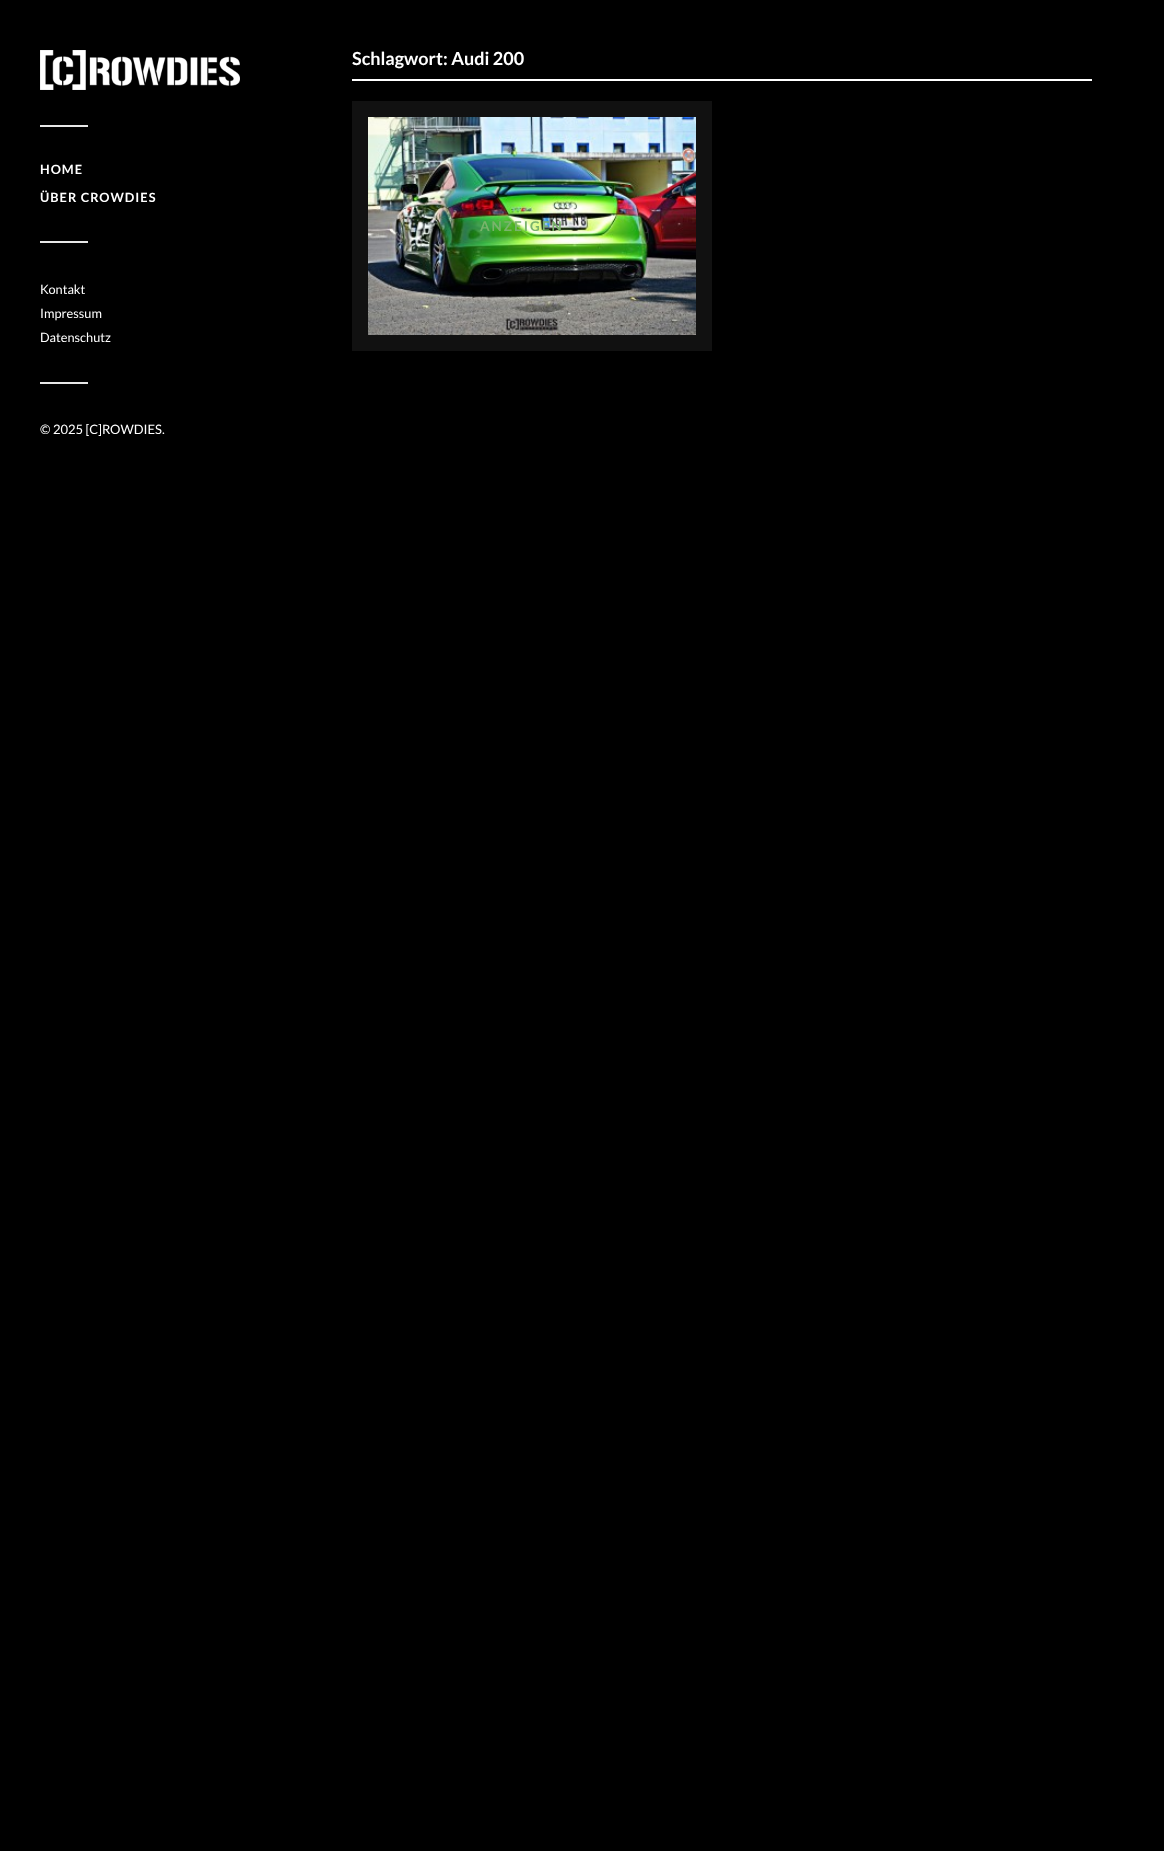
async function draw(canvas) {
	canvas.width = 1164;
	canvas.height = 1851;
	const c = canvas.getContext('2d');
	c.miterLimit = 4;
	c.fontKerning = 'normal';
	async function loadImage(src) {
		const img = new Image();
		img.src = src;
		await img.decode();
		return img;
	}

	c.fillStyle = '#000';
	c.fillRect(0, 0, 1164, 1851);
	c.fillStyle = '#fff';
	c.fillRect(352, 79, 740, 2);
	c.font = 'bold 18px Lato';
	c.fillText('Schlagwort: Audi 200', 352, 65);
	c.fillStyle = '#111';
	c.fillRect(352, 101, 360, 250);
	c.drawImage(await loadImage('img1.png'), 368, 117, 328, 218);
	c.letterSpacing = '2px';
	c.font = 'bold 13.5px Lato';
	c.fillStyle = '#7ab46c';
	c.fillText('ANZEIGEN', 480, 231);
	c.drawImage(await loadImage('img2.png'), 40, 50, 200, 40);
	c.fillStyle = '#e7e7e7';
	c.fillRect(40, 125, 48, 2);
	c.letterSpacing = '1px';
	c.font = 'bold 12.75px Lato';
	c.fillStyle = '#fff';
	c.fillText('HOME', 40, 174);
	c.fillText('ÜBER CROWDIES', 40, 202);
	c.fillStyle = '#e7e7e7';
	c.fillRect(40, 241, 48, 2);
	c.letterSpacing = '0px';
	c.font = '12.75px Lato';
	c.fillStyle = '#fff';
	for (const [text, x, y] of [
		['Kontakt', 40, 294],
		['Impressum', 40, 318],
		['Datenschutz', 40, 342],
	]) {
		c.fillText(text, x, y);
	}
	c.fillStyle = '#e7e7e7';
	c.fillRect(40, 382, 48, 2);
	c.font = '13px Lato';
	c.fillStyle = '#fff';
	c.fillText('© 2025 [C]ROWDIES.', 40, 434);
}

draw(document.querySelector('canvas'));
